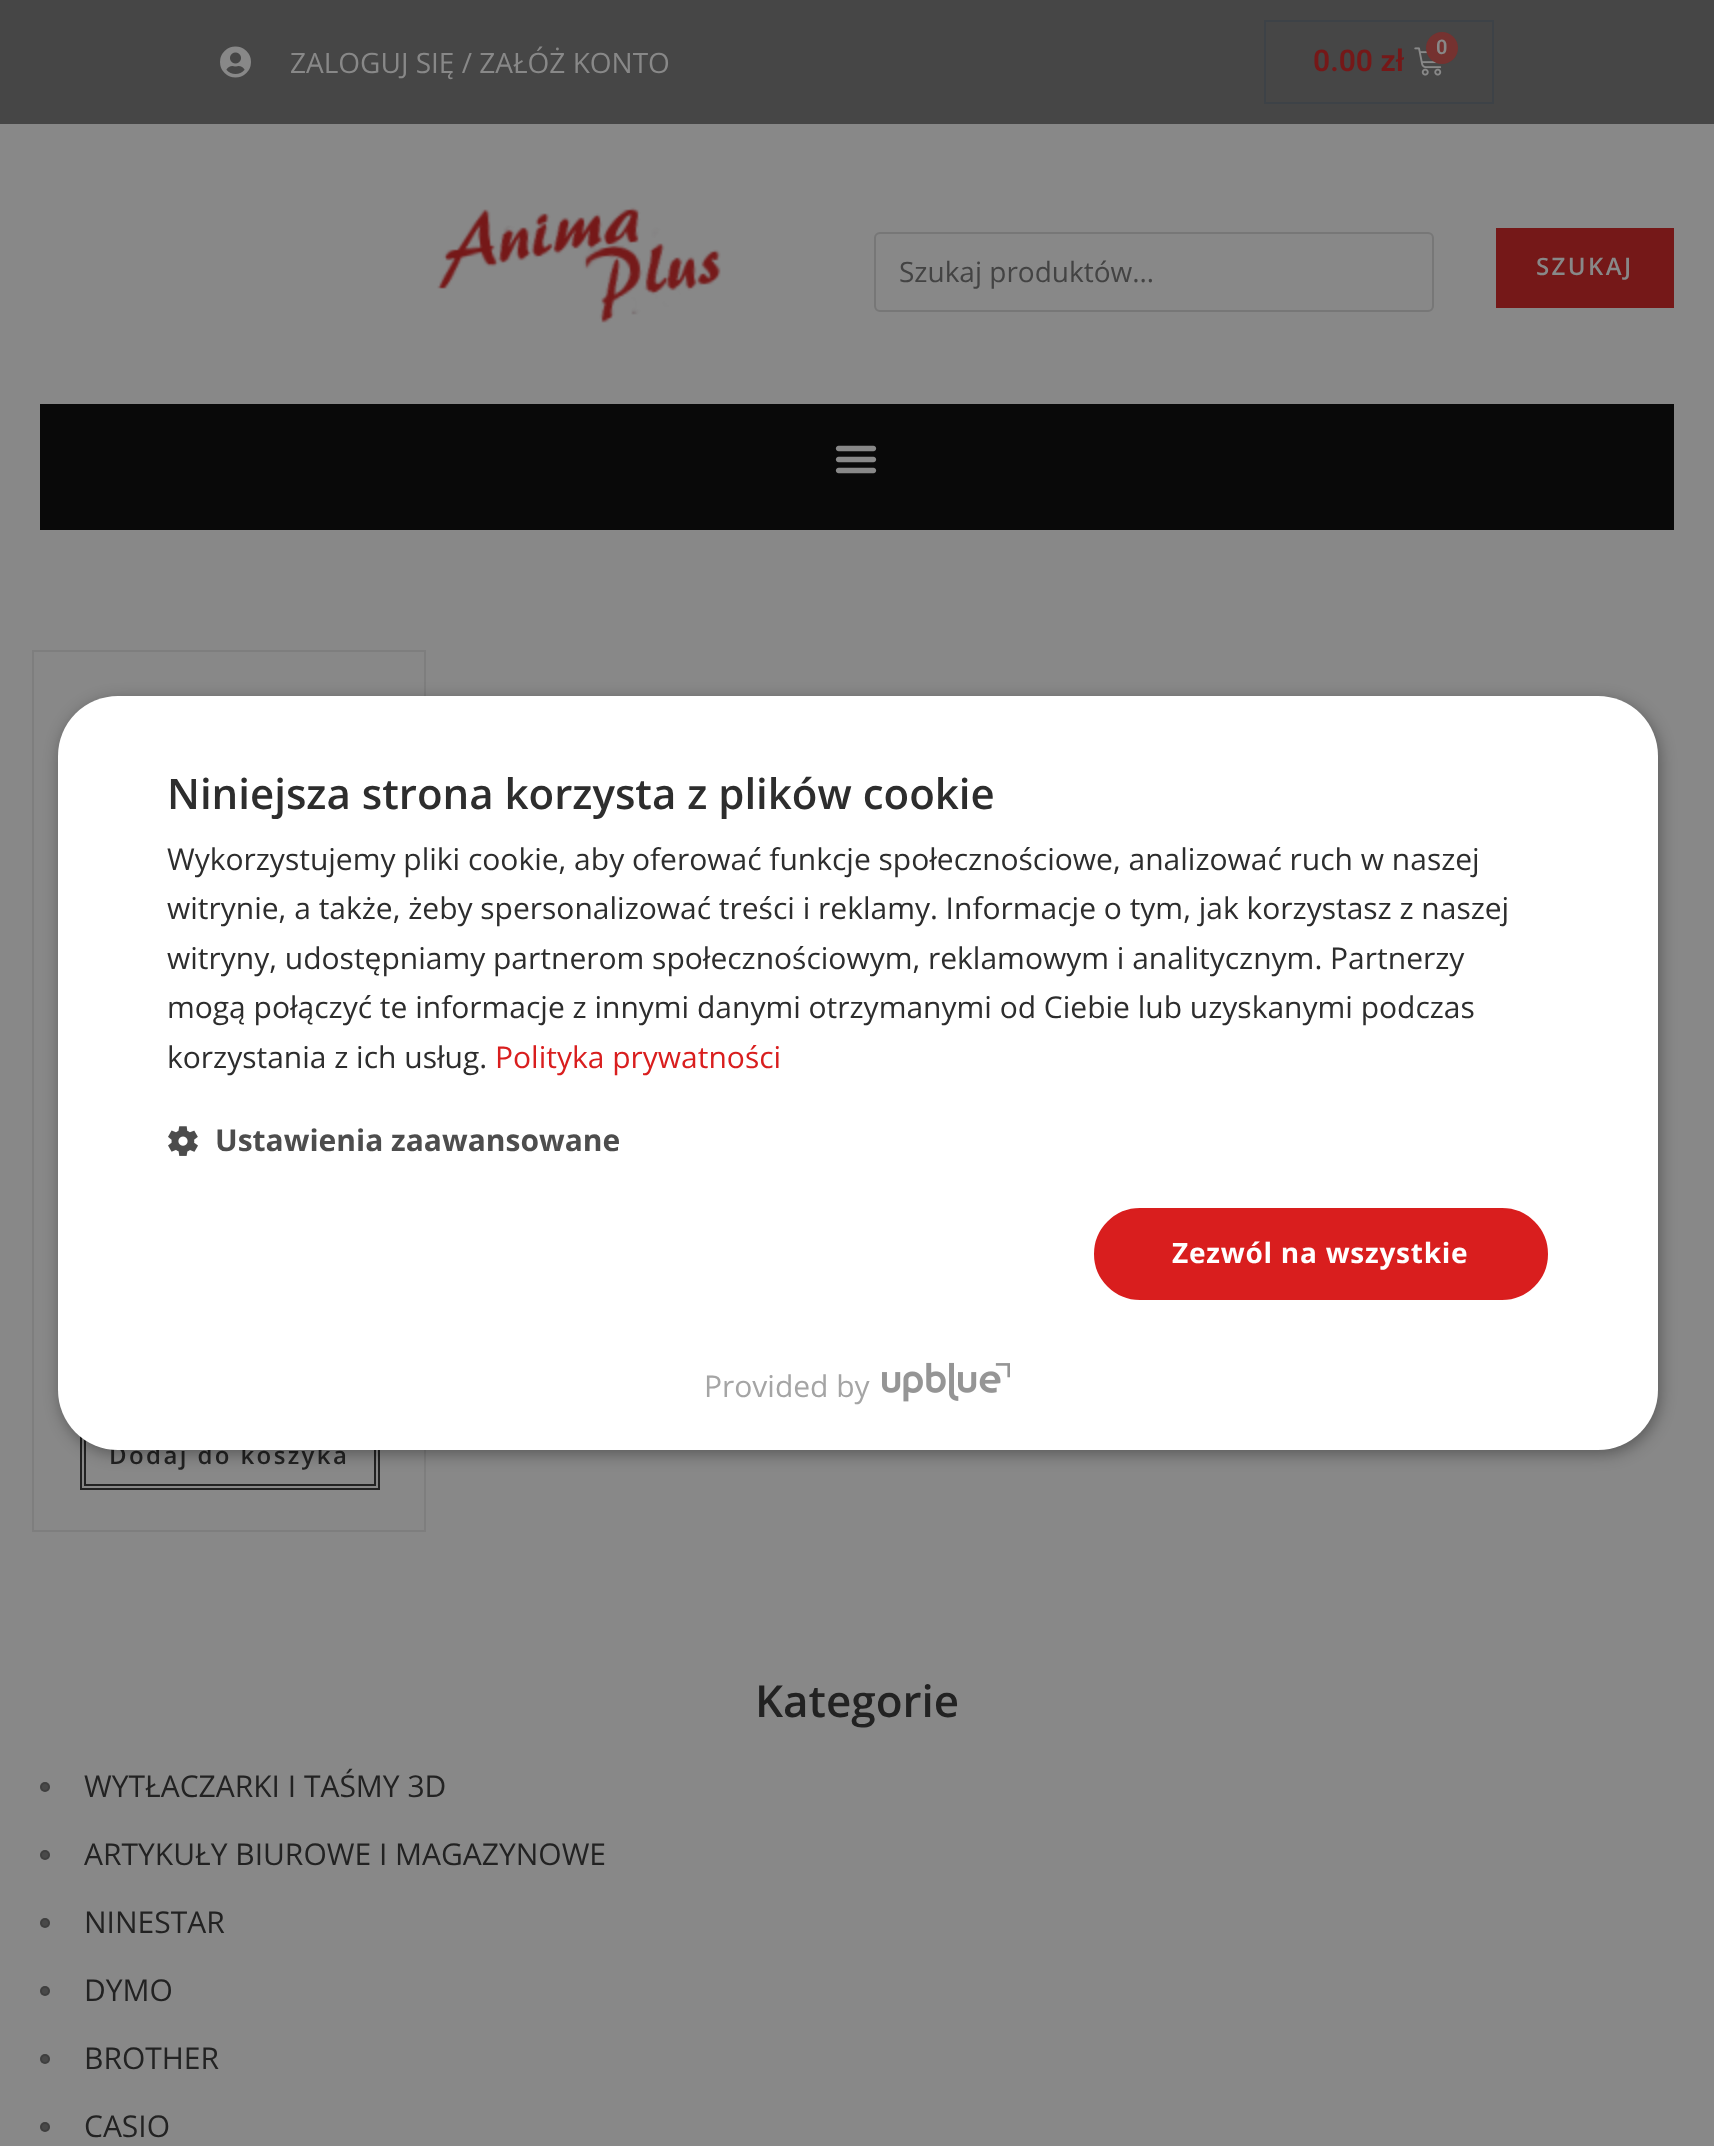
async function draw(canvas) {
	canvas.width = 1714;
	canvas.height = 2146;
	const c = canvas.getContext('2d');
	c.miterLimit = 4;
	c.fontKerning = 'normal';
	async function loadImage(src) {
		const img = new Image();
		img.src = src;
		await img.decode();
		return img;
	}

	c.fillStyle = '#888';
	c.fillRect(0, 0, 1714, 2146);
	c.fillStyle = '#464646';
	c.fillRect(0, 0, 1714, 124);
	c.drawImage(await loadImage('img1.png'), 220, 46, 31, 32);
	c.font = '28px Open Sans';
	c.fillStyle = '#888';
	c.fillText('ZALOGUJ SIĘ / ZAŁÓŻ KONTO', 290, 73);
	c.strokeStyle = '#3d4247';
	c.lineWidth = 2;
	c.strokeRect(1265, 21, 228, 82);
	c.font = '600 30px Roboto';
	c.fillStyle = '#751818';
	c.fillText('0.00 zł', 1313, 71);
	c.drawImage(await loadImage('img2.png'), 1414, 47, 28, 29);
	c.fillStyle = '#753230';
	c.beginPath();
	c.arc(1442, 48, 16, 0, 2 * Math.PI);
	c.fill();
	c.font = '600 20px Roboto';
	c.fillStyle = '#888';
	c.fillText('0', 1436, 54);
	c.drawImage(await loadImage('img3.png'), 437, 207, 284, 116);
	c.beginPath();
	c.roundRect(875, 233, 558, 78, 5);
	c.strokeStyle = '#777';
	c.stroke();
	c.font = '28px Open Sans';
	c.fillStyle = '#434343';
	c.fillText('Szukaj produktów…', 899, 282);
	c.fillStyle = '#751818';
	c.fillRect(1496, 228, 178, 80);
	c.letterSpacing = '2.4px';
	c.font = '600 24px Open Sans';
	c.fillStyle = '#888';
	c.fillText('SZUKAJ', 1536, 275);
	c.fillStyle = '#090909';
	c.fillRect(40, 404, 1634, 126);
	c.drawImage(await loadImage('img4.png'), 835, 445, 42, 29);
	c.strokeStyle = '#7e7e7e';
	c.strokeRect(33, 651, 392, 880);
	c.drawImage(await loadImage('img5.png'), 74, 694, 310, 22);
	c.strokeStyle = '#222';
	c.strokeRect(81, 1423, 298, 66);
	c.strokeRect(85, 1427, 290, 58);
	c.fillStyle = '#222';
	c.fillText('Dodaj do koszyka', 109, 1464);
	c.letterSpacing = '0px';
	c.font = '600 44px Open Sans';
	c.fillText('Kategorie', 755, 1717);
	c.fillStyle = '#494949';
	c.beginPath();
	c.arc(45, 1787, 5, 0, 2 * Math.PI);
	c.fill();
	c.beginPath();
	c.arc(45, 1787, 4, 0, 2 * Math.PI);
	c.strokeStyle = '#09090926';
	c.stroke();
	c.font = '30px Open Sans';
	c.fillStyle = '#222';
	c.fillText('WYTŁACZARKI I TAŚMY 3D', 84, 1797);
	c.fillStyle = '#494949';
	c.beginPath();
	c.arc(45, 1855, 5, 0, 2 * Math.PI);
	c.fill();
	c.beginPath();
	c.arc(45, 1855, 4, 0, 2 * Math.PI);
	c.stroke();
	c.fillStyle = '#222';
	c.fillText('ARTYKUŁY BIUROWE I MAGAZYNOWE', 84, 1865);
	c.fillStyle = '#494949';
	c.beginPath();
	c.arc(45, 1923, 5, 0, 2 * Math.PI);
	c.fill();
	c.beginPath();
	c.arc(45, 1923, 4, 0, 2 * Math.PI);
	c.stroke();
	c.fillStyle = '#222';
	c.fillText('NINESTAR', 84, 1933);
	c.fillStyle = '#494949';
	c.beginPath();
	c.arc(45, 1991, 5, 0, 2 * Math.PI);
	c.fill();
	c.beginPath();
	c.arc(45, 1991, 4, 0, 2 * Math.PI);
	c.stroke();
	c.fillStyle = '#222';
	c.fillText('DYMO', 84, 2001);
	c.fillStyle = '#494949';
	c.beginPath();
	c.arc(45, 2059, 5, 0, 2 * Math.PI);
	c.fill();
	c.beginPath();
	c.arc(45, 2059, 4, 0, 2 * Math.PI);
	c.stroke();
	c.fillStyle = '#222';
	c.fillText('BROTHER', 84, 2069);
	c.fillStyle = '#494949';
	c.beginPath();
	c.arc(45, 2127, 5, 0, 2 * Math.PI);
	c.fill();
	c.beginPath();
	c.arc(45, 2127, 4, 0, 2 * Math.PI);
	c.stroke();
	c.fillStyle = '#222';
	c.fillText('CASIO', 84, 2137);
	c.fillStyle = '#00000059';
	c.filter = 'blur(8px)';
	c.beginPath();
	c.roundRect(60, 700, 1600, 754, 60);
	c.fill();
	c.filter = 'none';
	c.fillStyle = '#fff';
	c.beginPath();
	c.roundRect(58, 696, 1600, 754, 60);
	c.fill();
	c.font = '600 42px Open Sans';
	c.fillStyle = '#2d2d2d';
	c.fillText('Niniejsza strona korzysta z plików cookie', 167, 809);
	c.font = '30px Open Sans';
	for (const [text, x, y] of [
		['Wykorzystujemy pliki cookie, aby oferować funkcje społecznościowe, analizować ruch w naszej', 167, 870],
		['witrynie, a także, żeby spersonalizować treści i reklamy. Informacje o tym, jak korzystasz z naszej', 167, 919],
		['witryny, udostępniamy partnerom społecznościowym, reklamowym i analitycznym. Partnerzy', 167, 969],
		['mogą połączyć te informacje z innymi danymi otrzymanymi od Ciebie lub uzyskanymi podczas', 167, 1018],
		['korzystania z ich usług.', 167, 1068],
	]) {
		c.fillText(text, x, y);
	}
	c.fillStyle = '#d91e1e';
	c.fillText('Polityka prywatności', 495, 1068);
	c.drawImage(await loadImage('img6.png'), 168, 1126, 30, 30);
	c.font = 'bold 30px Open Sans';
	c.fillStyle = '#4d4d4d';
	c.fillText('Ustawienia zaawansowane', 215, 1151);
	c.fillStyle = '#d91e1e';
	c.beginPath();
	c.roundRect(1095, 1209, 452, 90, 45);
	c.fill();
	c.strokeStyle = '#d91e1e';
	c.stroke();
	c.letterSpacing = '0.75px';
	c.font = 'bold 28px Open Sans';
	c.fillStyle = '#fff';
	c.fillText('Zezwól na wszystkie', 1172, 1263);
	c.letterSpacing = '0px';
	c.font = '30px Open Sans';
	c.fillStyle = '#a5a5a5';
	c.fillText('Provided by', 704, 1397);
	c.drawImage(await loadImage('img7.png'), 882, 1362, 128, 40);
}

draw(document.querySelector('canvas'));
